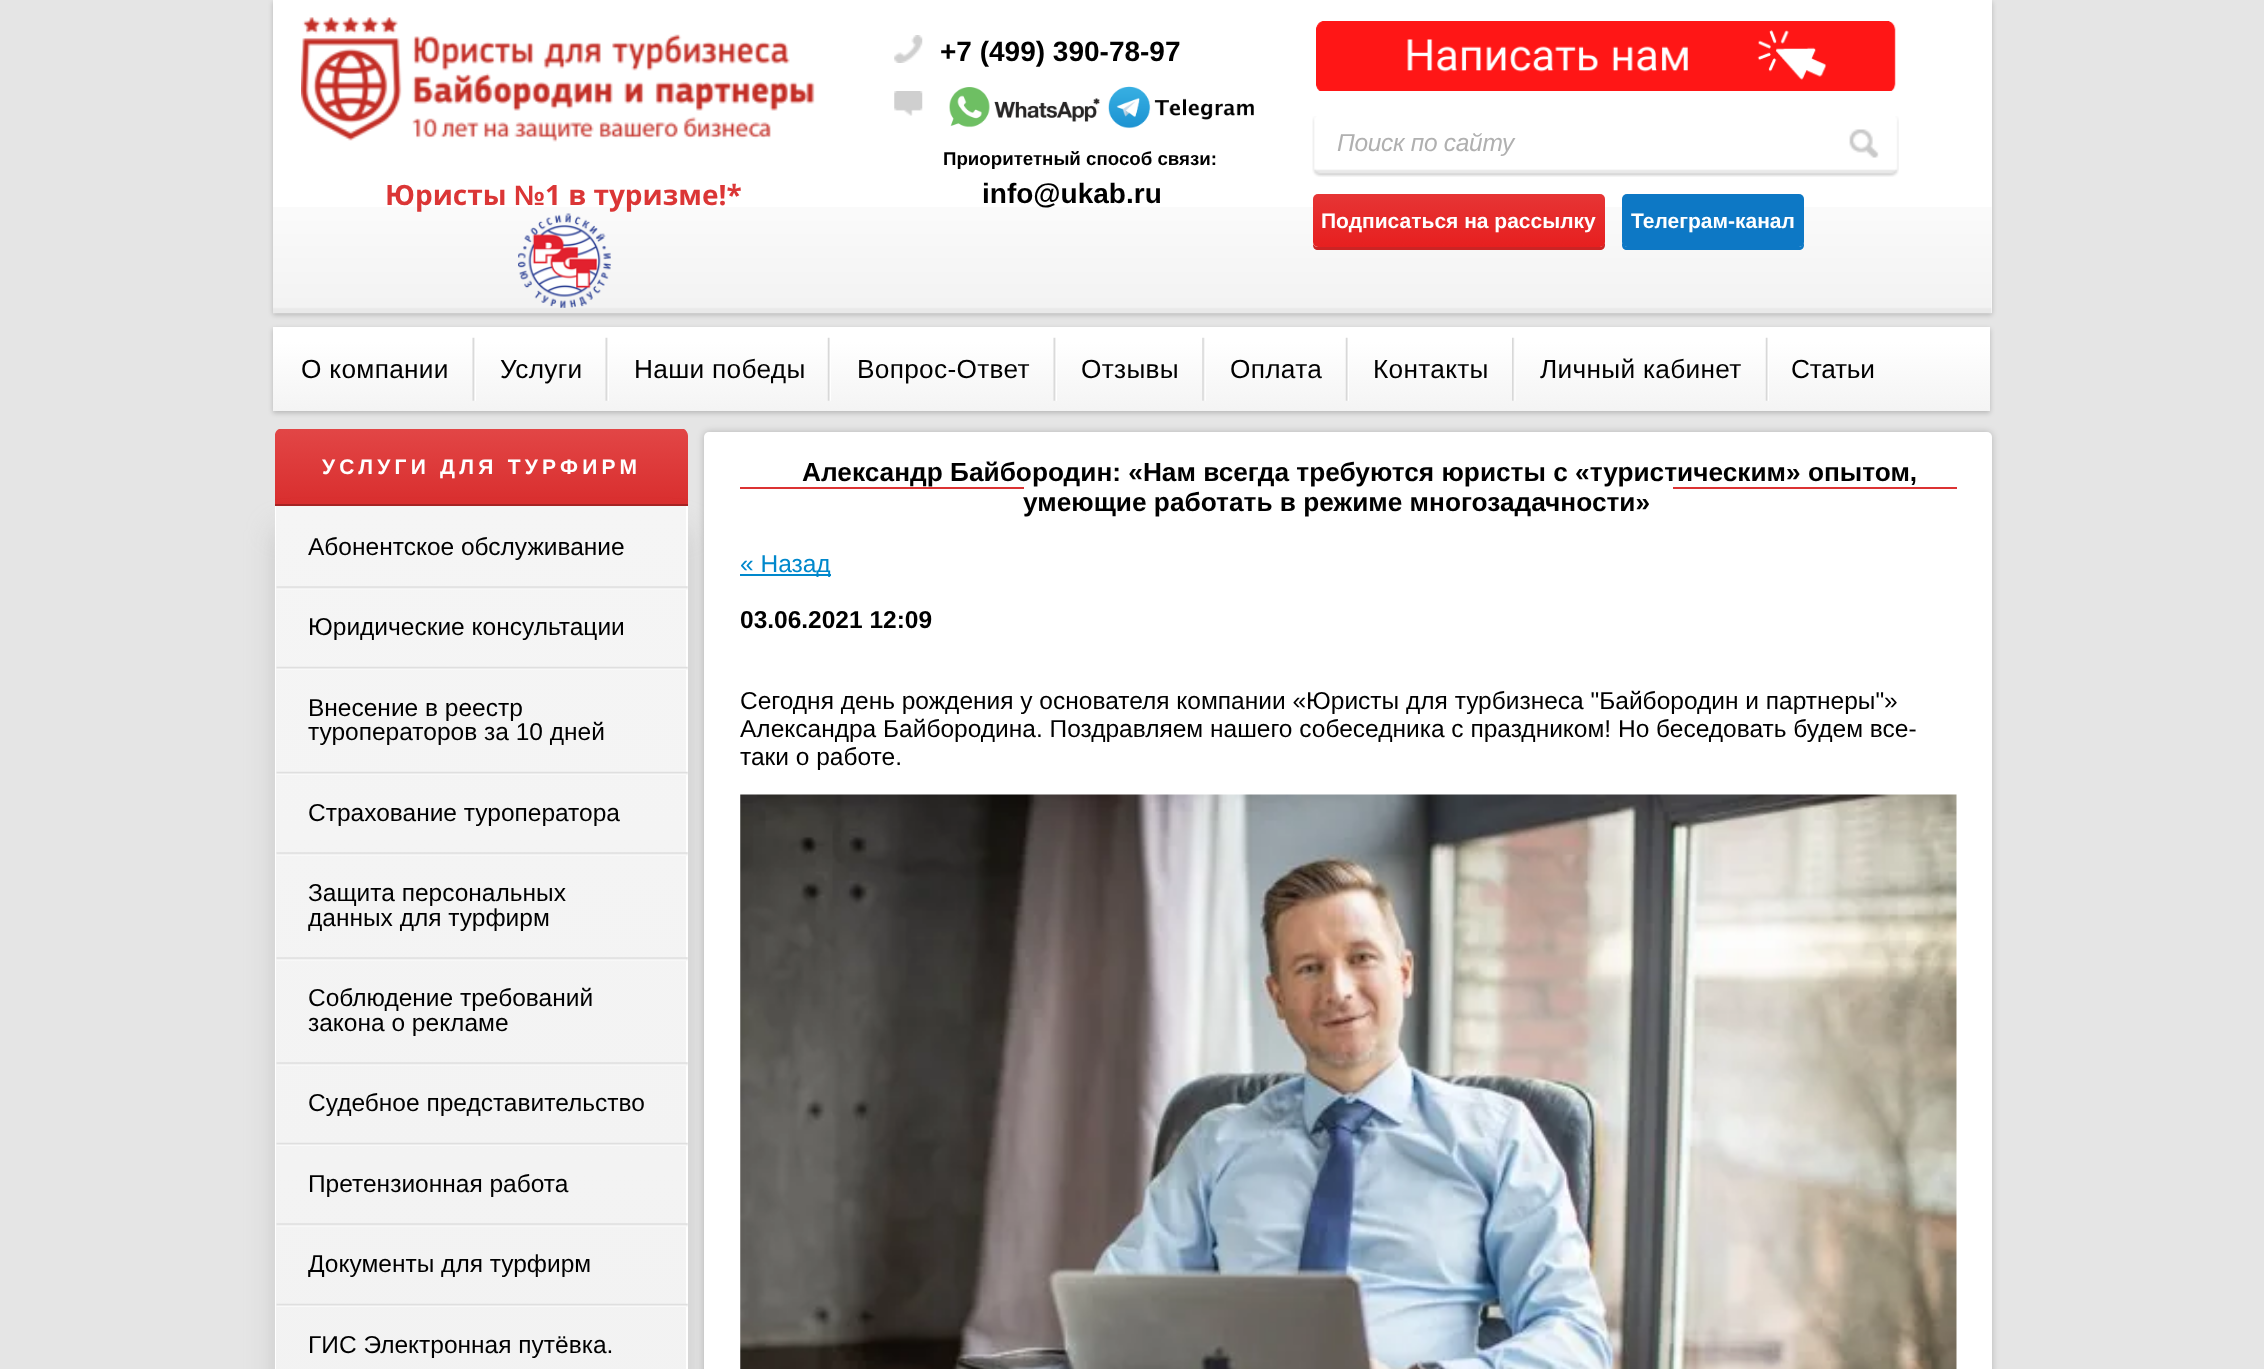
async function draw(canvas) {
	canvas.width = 2264;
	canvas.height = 1369;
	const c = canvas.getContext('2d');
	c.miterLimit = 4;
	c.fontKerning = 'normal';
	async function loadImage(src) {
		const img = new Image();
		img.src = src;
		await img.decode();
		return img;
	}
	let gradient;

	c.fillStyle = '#e5e5e5';
	c.fillRect(0, 0, 2264, 1369);
	c.fillStyle = '#00000033';
	c.filter = 'blur(2.5px)';
	c.beginPath();
	c.rect(273, 2, 1719, 313);
	c.fill();
	c.filter = 'none';
	c.fillStyle = '#fff';
	c.fillRect(273, 0, 1719, 313);
	c.drawImage(await loadImage('img1.png'), 273, 207, 1719, 107);
	c.drawImage(await loadImage('img2.png'), 301, 17, 514, 125);
	c.font = 'bold 28px Open Sans';
	c.fillStyle = '#db3636';
	c.fillText('Юристы', 385, 205);
	c.font = 'bold 28px Liberation Sans';
	c.fillText('№', 514, 205);
	c.font = 'bold 28px Open Sans';
	c.fillText('1 в туризме!*', 545, 205);
	c.drawImage(await loadImage('img3.png'), 518, 213, 93, 95);
	c.drawImage(await loadImage('img4.png'), 894, 35, 29, 28);
	c.font = 'bold 28px Liberation Sans';
	c.fillStyle = '#000';
	c.fillText('+7 (499) 390-78-97', 940, 61);
	c.drawImage(await loadImage('img5.png'), 894, 91, 29, 25);
	c.drawImage(await loadImage('img6.png'), 949, 87, 151, 41);
	c.drawImage(await loadImage('img7.png'), 1108, 86, 146, 43);
	c.font = 'bold 18.7px Liberation Sans';
	c.fillText('Приоритетный способ связи:', 943, 165);
	c.font = 'bold 28px Liberation Sans';
	c.fillText('info@ukab.ru', 982, 203);
	c.drawImage(await loadImage('img8.png'), 1316, 21, 580, 70);
	c.drawImage(await loadImage('img9.png'), 1312, 116, 587, 61);
	c.letterSpacing = '-0.3px';
	c.font = 'italic 24.5px Liberation Sans';
	c.fillStyle = '#b0b0b0';
	c.fillText('Поиск по сайту', 1337, 151);
	c.fillStyle = '#cb2424';
	c.beginPath();
	c.moveTo(1313, 244);
	c.lineTo(1313, 245);
	c.bezierCurveTo(1313, 248, 1315, 250, 1318, 250);
	c.lineTo(1600, 250);
	c.bezierCurveTo(1603, 250, 1605, 248, 1605, 245);
	c.lineTo(1605, 201);
	c.lineTo(1605, 242);
	c.bezierCurveTo(1605, 244, 1602, 247, 1600, 247);
	c.lineTo(1318, 247);
	c.bezierCurveTo(1316, 247, 1314, 246, 1313, 244);
	c.closePath();
	c.fill();
	gradient = c.createLinearGradient(1459, 194, 1459, 247);
	gradient.addColorStop(0, '#e63535');
	gradient.addColorStop(1, '#e71f1f');
	c.fillStyle = gradient;
	c.beginPath();
	c.roundRect(1313, 194, 292, 53, 5);
	c.fill();
	c.letterSpacing = '0px';
	c.font = 'bold 21px Liberation Sans';
	c.fillStyle = '#fff';
	c.fillText('Подписаться на рассылку', 1321, 228);
	c.fillStyle = '#0d78c5';
	c.beginPath();
	c.moveTo(1622, 201);
	c.lineTo(1622, 245);
	c.bezierCurveTo(1622, 248, 1624, 250, 1627, 250);
	c.lineTo(1799, 250);
	c.bezierCurveTo(1802, 250, 1804, 248, 1804, 245);
	c.lineTo(1804, 243);
	c.bezierCurveTo(1803, 245, 1801, 247, 1799, 247);
	c.lineTo(1628, 247);
	c.bezierCurveTo(1625, 247, 1622, 244, 1622, 242);
	c.closePath();
	c.fill();
	c.beginPath();
	c.roundRect(1622, 194, 182, 53, 5);
	c.fill();
	c.fillStyle = '#fff';
	c.fillText('Телеграм-канал', 1631, 228);
	c.fillStyle = '#00000033';
	c.filter = 'blur(2.5px)';
	c.beginPath();
	c.rect(273, 329, 1717, 84);
	c.fill();
	c.filter = 'none';
	gradient = c.createLinearGradient(1131, 425, 1131, 327);
	gradient.addColorStop(0, '#e9e9e9');
	gradient.addColorStop(0.09, '#e9e9e9');
	gradient.addColorStop(0.09, '#f3f3f3');
	gradient.addColorStop(0.85, '#fff');
	gradient.addColorStop(0.86, '#fff');
	c.fillStyle = gradient;
	c.fillRect(273, 327, 1717, 84);
	c.letterSpacing = '0.3px';
	c.font = '26.25px Liberation Sans';
	c.fillStyle = '#000';
	c.fillText('О компании', 301, 378);
	c.drawImage(await loadImage('img10.png'), 472, 337, 4, 64);
	c.fillText('Услуги', 500, 378);
	c.drawImage(await loadImage('img10.png'), 605, 337, 4, 64);
	c.fillText('Наши победы', 634, 378);
	c.drawImage(await loadImage('img11.png'), 827, 337, 4, 64);
	c.fillText('Вопрос-Ответ', 857, 378);
	c.drawImage(await loadImage('img10.png'), 1053, 337, 4, 64);
	c.fillText('Отзывы', 1081, 378);
	c.drawImage(await loadImage('img12.png'), 1202, 337, 4, 64);
	c.fillText('Оплата', 1230, 378);
	c.drawImage(await loadImage('img11.png'), 1345, 337, 4, 64);
	c.fillText('Контакты', 1373, 378);
	c.drawImage(await loadImage('img13.png'), 1512, 337, 4, 64);
	c.fillText('Личный кабинет', 1540, 378);
	c.drawImage(await loadImage('img14.png'), 1765, 337, 4, 64);
	c.letterSpacing = '-0.25px';
	c.fillText('Статьи', 1791, 378);
	gradient = c.createLinearGradient(481, 429, 481, 504);
	gradient.addColorStop(0, '#e24646');
	gradient.addColorStop(1, '#d92e2e');
	c.fillStyle = gradient;
	c.beginPath();
	c.moveTo(275, 434);
	c.bezierCurveTo(276, 431, 277, 430, 279, 429);
	c.lineTo(684, 429);
	c.bezierCurveTo(686, 430, 688, 433, 688, 436);
	c.lineTo(688, 504);
	c.lineTo(275, 504);
	c.closePath();
	c.fill();
	c.fillStyle = '#a52222';
	c.fillRect(275, 504, 413, 2);
	c.letterSpacing = '4.25px';
	c.font = 'bold 21px Liberation Sans';
	c.fillStyle = '#fff';
	c.fillText('УСЛУГИ ДЛЯ ТУРФИРМ', 322, 474);
	c.fillStyle = '#acacac82';
	c.filter = 'blur(14px)';
	c.beginPath();
	c.roundRect(275, 529, 413, 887, 5);
	c.fill();
	c.filter = 'none';
	gradient = c.createLinearGradient(481, 506, 481, 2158);
	gradient.addColorStop(0, '#f5f5f5');
	gradient.addColorStop(1, '#f0f0f0');
	c.fillStyle = gradient;
	c.fillRect(276, 506, 410, 863);
	c.fillStyle = '#fff';
	c.beginPath();
	c.moveTo(275, 506);
	c.lineTo(688, 506);
	c.lineTo(688, 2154);
	c.bezierCurveTo(688, 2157, 685, 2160, 682, 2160);
	c.lineTo(280, 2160);
	c.bezierCurveTo(277, 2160, 275, 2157, 275, 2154);
	c.closePath();
	c.moveTo(276, 506);
	c.lineTo(686, 506);
	c.lineTo(686, 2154);
	c.bezierCurveTo(686, 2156, 684, 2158, 682, 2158);
	c.lineTo(280, 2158);
	c.bezierCurveTo(278, 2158, 276, 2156, 276, 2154);
	c.closePath();
	c.fill('evenodd');
	c.letterSpacing = '0px';
	c.font = '24.5px Liberation Sans';
	c.fillStyle = '#000';
	c.fillText('Абонентское обслуживание', 308, 555);
	c.drawImage(await loadImage('img15.png'), 276, 586, 412, 4);
	c.fillText('Юридические консультации', 308, 635);
	c.drawImage(await loadImage('img16.png'), 276, 666, 412, 4);
	c.fillText('Внесение в реестр', 308, 716);
	c.fillText('туроператоров за 10 дней', 308, 740);
	c.drawImage(await loadImage('img17.png'), 276, 771, 412, 4);
	c.fillText('Страхование туроператора', 308, 821);
	c.drawImage(await loadImage('img18.png'), 276, 852, 412, 4);
	c.fillText('Защита персональных', 308, 901);
	c.fillText('данных для турфирм', 308, 926);
	c.drawImage(await loadImage('img18.png'), 276, 957, 412, 4);
	c.fillText('Соблюдение требований', 308, 1006);
	c.fillText('закона о рекламе', 308, 1031);
	c.drawImage(await loadImage('img19.png'), 276, 1062, 412, 4);
	c.fillText('Судебное представительство', 308, 1111);
	c.drawImage(await loadImage('img20.png'), 276, 1142, 412, 4);
	c.fillText('Претензионная работа', 308, 1192);
	c.drawImage(await loadImage('img19.png'), 276, 1223, 412, 4);
	c.fillText('Документы для турфирм', 308, 1272);
	c.drawImage(await loadImage('img20.png'), 276, 1303, 412, 4);
	c.fillText('ГИС Электронная путёвка.', 308, 1353);
	c.fillStyle = '#00000036';
	c.filter = 'blur(3.5px)';
	c.beginPath();
	c.roundRect(704, 432, 1288, 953, 5);
	c.fill();
	c.filter = 'none';
	c.fillStyle = '#fff';
	c.beginPath();
	c.roundRect(704, 432, 1288, 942, 5);
	c.fill();
	c.font = 'bold 26.25px Liberation Sans';
	c.fillStyle = '#000';
	c.fillText('Александр Байбородин: «Нам всегда требуются юристы с «туристическим» опытом,', 802, 481);
	c.fillStyle = '#dc3333';
	c.fillRect(740, 487, 1217, 2);
	c.fillStyle = '#fff';
	c.fillRect(1024, 487, 649, 2);
	c.fillStyle = '#000';
	c.fillText('умеющие работать в режиме многозадачности»', 1023, 511);
	c.fillStyle = '#08c';
	c.fillRect(740, 574, 91, 2);
	c.font = '24.5px Liberation Sans';
	c.fillText('« Назад', 740, 572);
	c.font = 'bold 24.5px Liberation Sans';
	c.fillStyle = '#000';
	c.fillText('03.06.2021 12:09', 740, 628);
	c.font = '24.5px Liberation Sans';
	for (const [text, x, y] of [
		['Сегодня день рождения у основателя компании «Юристы для турбизнеса "Байбородин и партнеры"»', 740, 709],
		['Александра Байбородина. Поздравляем нашего собеседника с праздником! Но беседовать будем все-', 740, 737],
		['таки о работе.', 740, 765],
	]) {
		c.fillText(text, x, y);
	}
	c.drawImage(await loadImage('img21.png'), 740, 794, 1217, 575);
}

draw(document.querySelector('canvas'));
